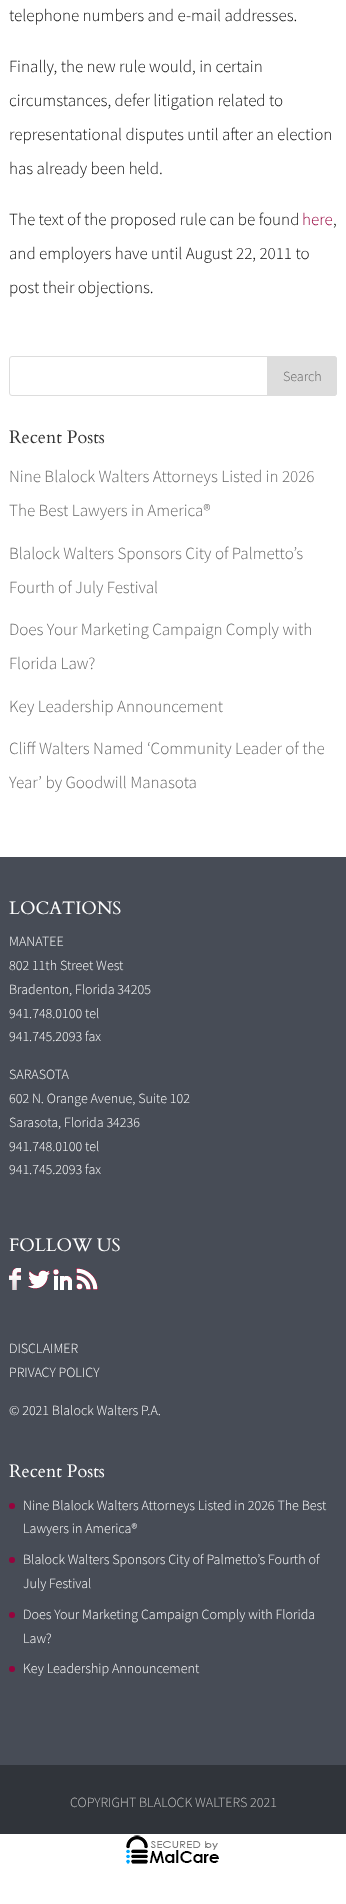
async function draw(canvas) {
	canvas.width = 346;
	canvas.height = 1904;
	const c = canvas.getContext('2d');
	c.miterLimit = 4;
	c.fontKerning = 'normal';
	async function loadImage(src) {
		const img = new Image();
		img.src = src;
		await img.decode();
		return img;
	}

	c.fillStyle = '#fff';
	c.fillRect(0, 0, 346, 1904);
	c.font = '300 17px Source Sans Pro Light';
	c.fillStyle = '#0a0a0a';
	for (const [text, x, y] of [
		['telephone numbers and e-mail addresses.', 9, 21],
		['Finally, the new rule would, in certain', 9, 72],
		['circumstances, defer litigation related to', 9, 106],
		['representational disputes until after an election', 9, 140],
		['has already been held.', 9, 174],
		['The text of the proposed rule can be found', 9, 225],
	]) {
		c.fillText(text, x, y);
	}
	c.fillStyle = '#96033d';
	c.fillText('here', 302, 225);
	c.fillStyle = '#0a0a0a';
	for (const [text, x, y] of [
		[',', 333, 225],
		['and employers have until August 22, 2011 to', 9, 259],
		['post their objections.', 9, 293],
	]) {
		c.fillText(text, x, y);
	}
	c.beginPath();
	c.roundRect(9.5, 356.5, 327, 39, 2.5);
	c.strokeStyle = '#ddd';
	c.stroke();
	c.fillStyle = '#ddd';
	c.beginPath();
	c.roundRect(267.5, 356.5, 69, 39, [0, 2.5, 2.5, 0]);
	c.fill();
	c.stroke();
	c.font = '300 14px Source Sans Pro Light';
	c.fillStyle = '#666';
	c.fillText('Search', 283, 381);
	c.font = '18px Cardo';
	c.fillStyle = '#333';
	c.fillText('Recent Posts', 9, 443);
	c.font = '300 17px Source Sans Pro Light';
	c.fillStyle = '#666';
	for (const [text, x, y] of [
		['Nine Blalock Walters Attorneys Listed in 2026', 9, 482],
		['The Best Lawyers in America®', 9, 516],
		['Blalock Walters Sponsors City of Palmetto’s', 9, 559],
		['Fourth of July Festival', 9, 593],
		['Does Your Marketing Campaign Comply with', 9, 635],
		['Florida Law?', 9, 669],
		['Key Leadership Announcement', 9, 712],
		['Cliff Walters Named ‘Community Leader of the', 9, 754],
		['Year’ by Goodwill Manasota', 9, 788],
	]) {
		c.fillText(text, x, y);
	}
	c.fillStyle = '#474c56';
	c.fillRect(0, 857, 346, 908);
	c.font = '18px Cardo';
	c.fillStyle = '#fff';
	c.fillText('LOCATIONS', 9, 914);
	c.font = '300 14px Source Sans Pro Light';
	for (const [text, x, y] of [
		['MANATEE', 9, 946],
		['802 11th Street West', 9, 970],
		['Bradenton, Florida 34205', 9, 994],
		['941.748.0100 tel', 9, 1018],
		['941.745.2093 fax', 9, 1041],
		['SARASOTA', 9, 1079],
		['602 N. Orange Avenue, Suite 102', 9, 1103],
		['Sarasota, Florida 34236', 9, 1127],
		['941.748.0100 tel', 9, 1151],
		['941.745.2093 fax', 9, 1174],
	]) {
		c.fillText(text, x, y);
	}
	c.font = '18px Cardo';
	c.fillText('FOLLOW US', 9, 1251);
	c.drawImage(await loadImage('img1.png'), 9, 1268, 12, 22);
	c.drawImage(await loadImage('img2.png'), 28, 1270, 22, 19);
	c.drawImage(await loadImage('img3.png'), 53, 1269, 19, 21);
	c.drawImage(await loadImage('img4.png'), 76, 1268, 22, 22);
	c.font = '300 14px Source Sans Pro Light';
	for (const [text, x, y] of [
		['DISCLAIMER', 9, 1353],
		['PRIVACY POLICY', 9, 1377],
		['© 2021 Blalock Walters P.A.', 9, 1415],
	]) {
		c.fillText(text, x, y);
	}
	c.font = '18px Cardo';
	c.fillText('Recent Posts', 9, 1477);
	c.fillStyle = '#96033d';
	c.beginPath();
	c.arc(12, 1506, 3, 0, 2 * Math.PI);
	c.fill();
	c.font = '300 14px Source Sans Pro Light';
	c.fillStyle = '#fff';
	c.fillText('Nine Blalock Walters Attorneys Listed in 2026 The Best', 23, 1510);
	c.fillText('Lawyers in America®', 23, 1533);
	c.fillStyle = '#96033d';
	c.beginPath();
	c.arc(12, 1560, 3, 0, 2 * Math.PI);
	c.fill();
	c.fillStyle = '#fff';
	c.fillText('Blalock Walters Sponsors City of Palmetto’s Fourth of', 23, 1564);
	c.fillText('July Festival', 23, 1588);
	c.fillStyle = '#96033d';
	c.beginPath();
	c.arc(12, 1615, 3, 0, 2 * Math.PI);
	c.fill();
	c.fillStyle = '#fff';
	c.fillText('Does Your Marketing Campaign Comply with Florida', 23, 1619);
	c.fillText('Law?', 23, 1643);
	c.fillStyle = '#96033d';
	c.beginPath();
	c.arc(12, 1669, 3, 0, 2 * Math.PI);
	c.fill();
	c.fillStyle = '#fff';
	c.fillText('Key Leadership Announcement', 23, 1673);
	c.fillStyle = '#30343a';
	c.fillRect(0, 1765, 346, 69);
	c.fillStyle = '#c4c4c4';
	c.fillText('COPYRIGHT BLALOCK WALTERS 2021', 70, 1807);
	c.drawImage(await loadImage('img5.png'), 126, 1835, 93, 29);
}

draw(document.querySelector('canvas'));
